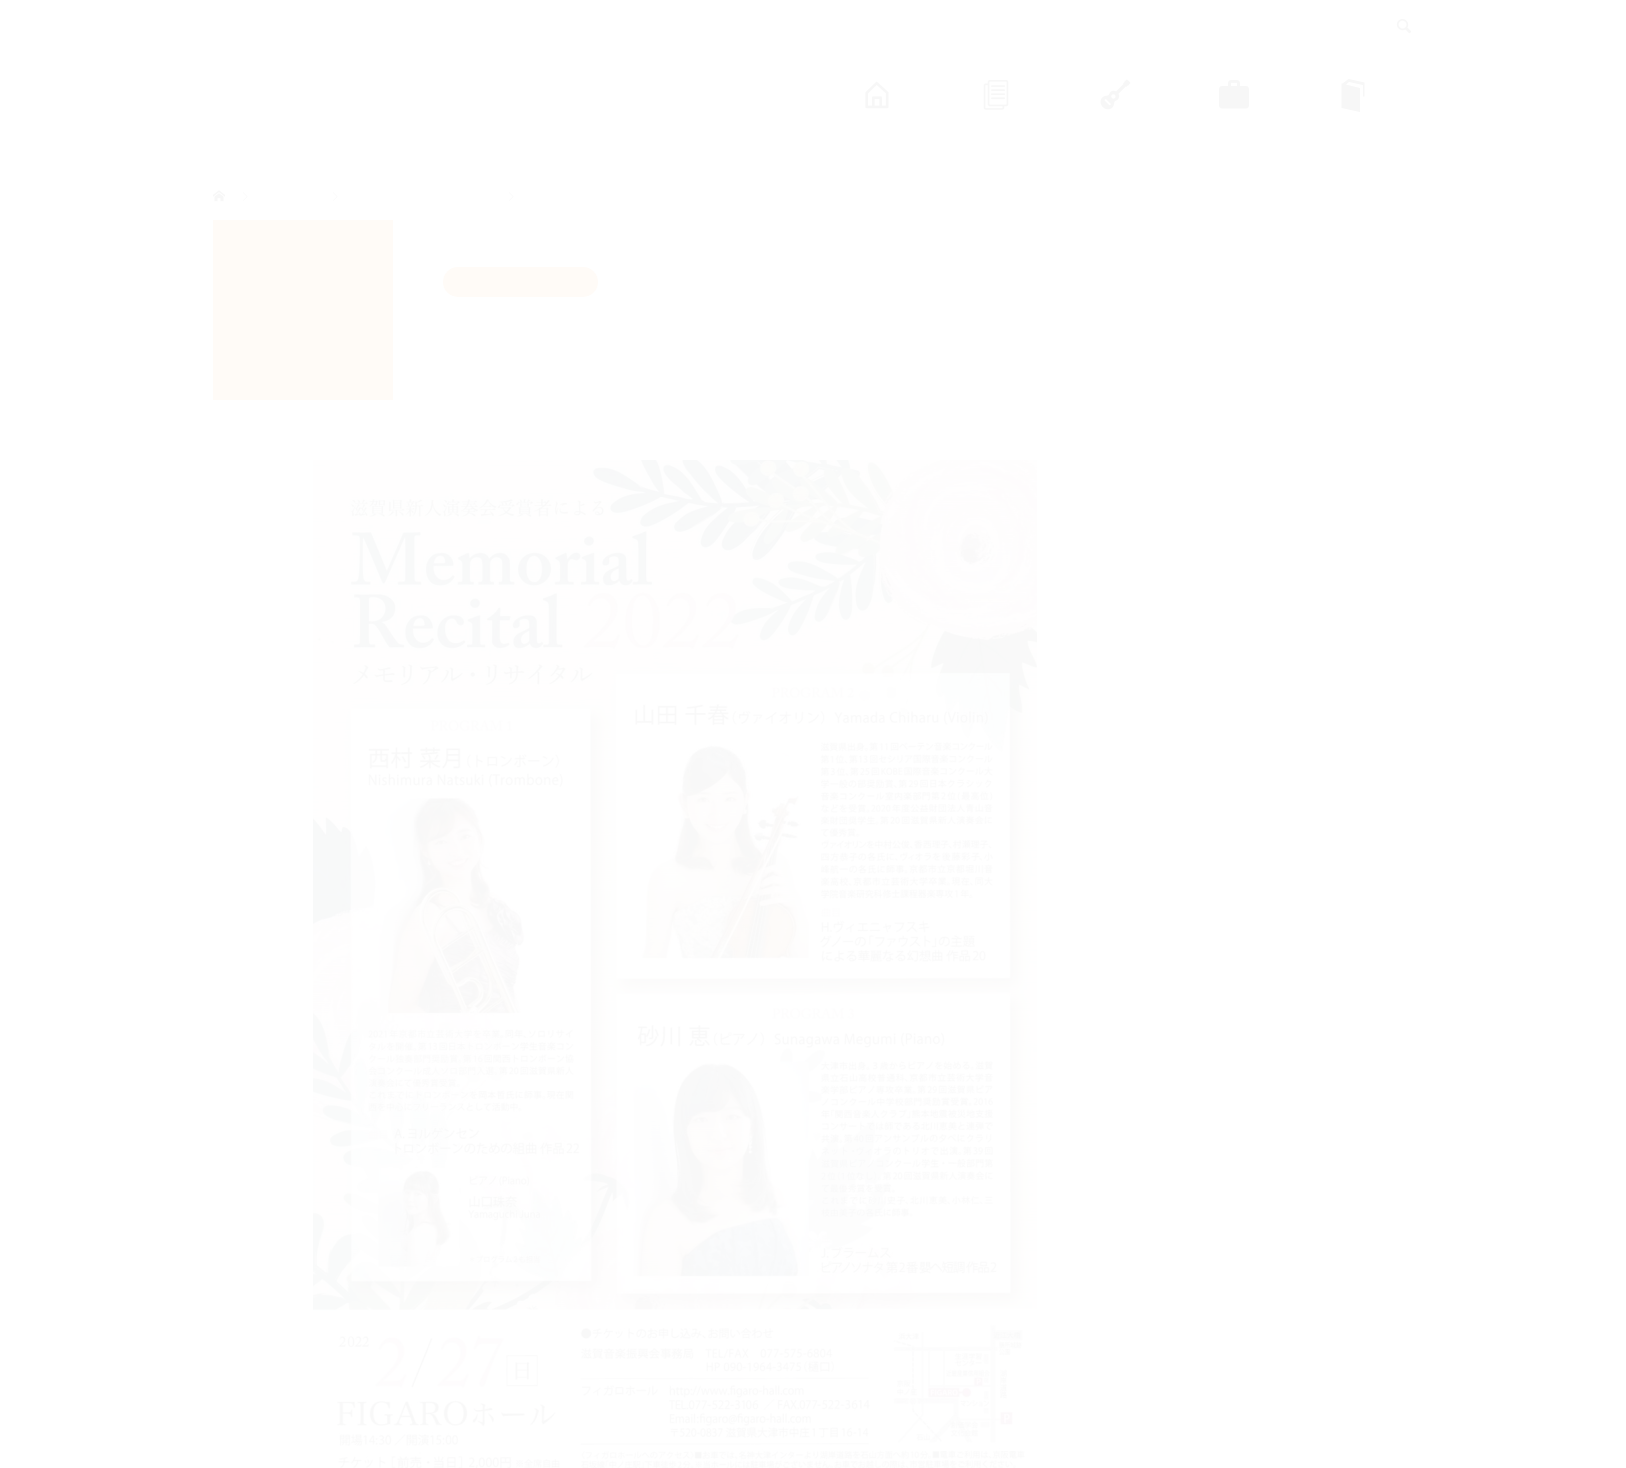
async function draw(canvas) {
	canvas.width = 1626;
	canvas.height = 1468;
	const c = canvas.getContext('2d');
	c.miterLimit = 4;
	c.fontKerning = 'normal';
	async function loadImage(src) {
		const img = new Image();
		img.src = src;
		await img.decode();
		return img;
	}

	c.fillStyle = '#fff';
	c.fillRect(0, 0, 1626, 1468);
	c.drawImage(await loadImage('img1.png'), 1396, 19, 16, 15);
	c.drawImage(await loadImage('img2.png'), 865, 81, 24, 28);
	c.drawImage(await loadImage('img3.png'), 983, 80, 26, 30);
	c.drawImage(await loadImage('img4.png'), 1100, 79, 31, 31);
	c.drawImage(await loadImage('img5.png'), 1219, 80, 30, 29);
	c.fillStyle = '#f7f7f7';
	c.beginPath();
	c.moveTo(1348.5, 79);
	c.lineTo(1342.5, 83.5);
	c.lineTo(1341.5, 83.5);
	c.lineTo(1341.5, 108);
	c.lineTo(1360, 112);
	c.lineTo(1360, 88);
	c.lineTo(1346, 84.5);
	c.lineTo(1349, 82);
	c.lineTo(1363, 85);
	c.lineTo(1363, 96.5);
	c.lineTo(1364.5, 96.5);
	c.lineTo(1364.5, 82.5);
	c.closePath();
	c.fill();
	c.drawImage(await loadImage('img6.png'), 213, 190, 12, 12);
	c.drawImage(await loadImage('img7.png'), 243, 192, 5, 9);
	c.drawImage(await loadImage('img7.png'), 333, 192, 5, 9);
	c.drawImage(await loadImage('img7.png'), 509, 192, 5, 9);
	c.fillStyle = '#fffbf7';
	c.fillRect(213, 220, 180, 180);
	c.beginPath();
	c.roundRect(443, 267, 155, 30, 15);
	c.fill();
	c.drawImage(await loadImage('img8.png'), 313, 460, 724, 1008);
}

draw(document.querySelector('canvas'));
